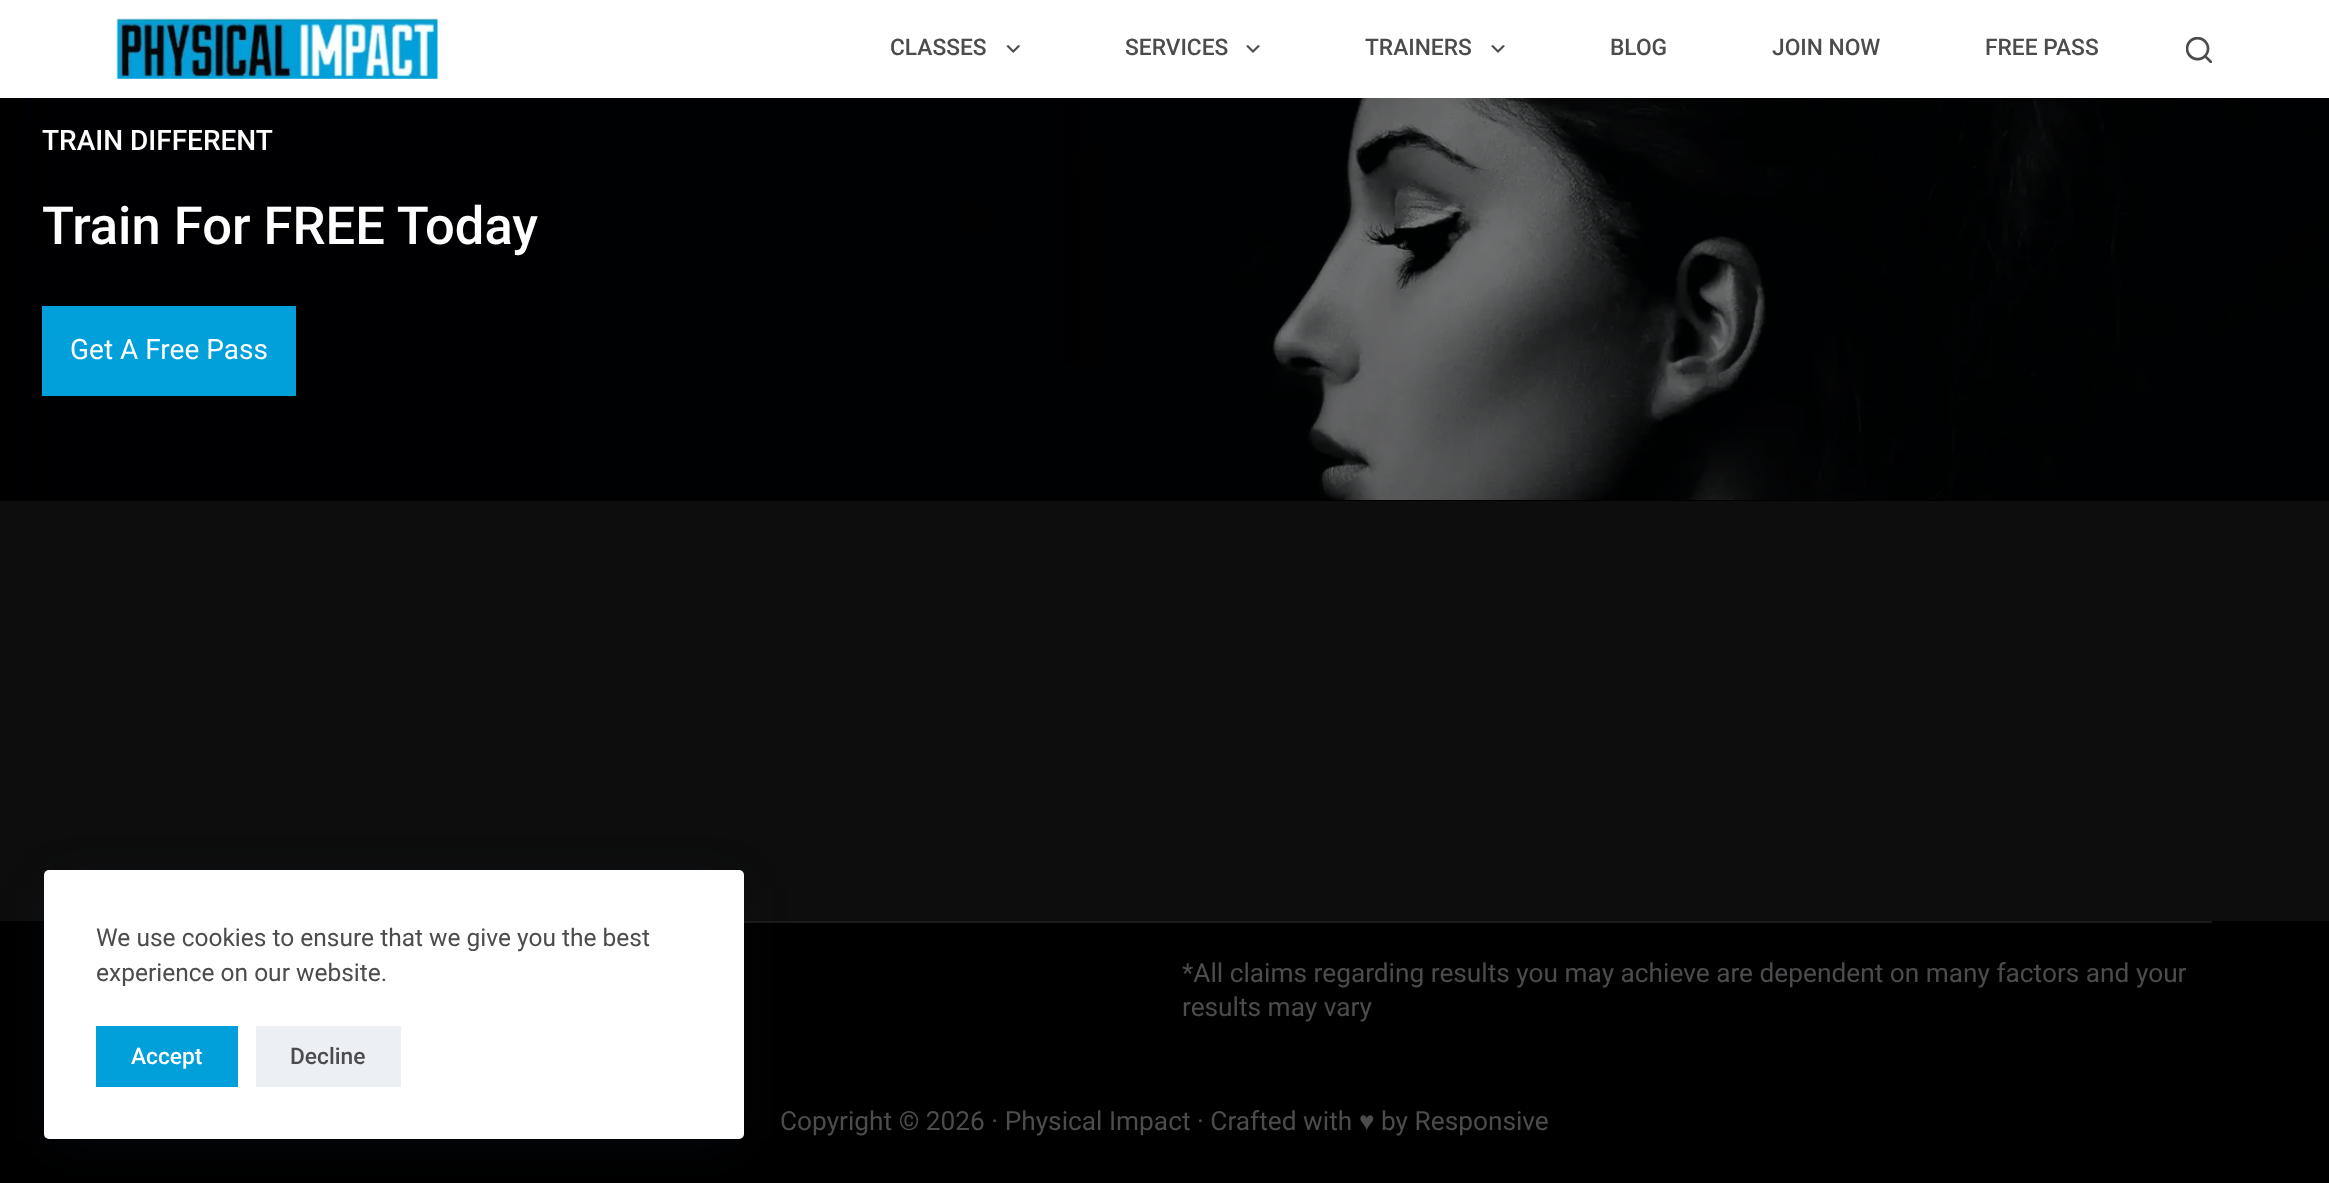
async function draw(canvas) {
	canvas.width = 2329;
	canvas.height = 1183;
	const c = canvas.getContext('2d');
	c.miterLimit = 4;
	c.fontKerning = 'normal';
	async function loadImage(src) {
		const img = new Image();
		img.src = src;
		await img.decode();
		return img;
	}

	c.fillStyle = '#000';
	c.fillRect(0, 0, 2329, 1183);
	c.fillStyle = '#fff';
	c.fillRect(0, 0, 2329, 98);
	c.drawImage(await loadImage('img1.png'), 116, 18, 323, 61);
	c.font = '500 22.75px Roboto';
	c.fillStyle = '#4c4c4e';
	c.fillText('CLASSES', 890, 55);
	c.drawImage(await loadImage('img2.png'), 1006, 45, 14, 8);
	c.fillText('SERVICES', 1125, 55);
	c.drawImage(await loadImage('img3.png'), 1246, 45, 14, 8);
	c.fillText('TRAINERS', 1365, 55);
	c.drawImage(await loadImage('img3.png'), 1491, 45, 14, 8);
	for (const [text, x, y] of [
		['BLOG', 1610, 55],
		['JOIN NOW', 1772, 55],
		['FREE PASS', 1985, 55],
	]) {
		c.fillText(text, x, y);
	}
	c.drawImage(await loadImage('img4.png'), 2186, 37, 26, 26);
	c.drawImage(await loadImage('img5.png'), 0, 98, 2329, 402);
	c.font = '500 28px Roboto';
	c.fillStyle = '#fff';
	c.fillText('TRAIN DIFFERENT', 42, 150);
	c.font = '500 52.5px Roboto';
	c.fillText('Train For FREE Today', 42, 244);
	c.fillStyle = '#01a0da';
	c.fillRect(42, 306, 254, 90);
	c.font = '28px Roboto';
	c.fillStyle = '#fff';
	c.fillText('Get A Free Pass', 70, 359);
	c.fillStyle = '#0d0d0d';
	c.fillRect(0, 501, 2329, 420);
	c.fillStyle = '#1a1a1a';
	c.fillRect(744, 921, 1468, 2);
	c.font = '26.25px Roboto';
	c.fillStyle = '#4c4c4e';
	for (const [text, x, y] of [
		['*All claims regarding results you may achieve are dependent on many factors and your', 1182, 982],
		['results may vary', 1182, 1016],
		['Copyright © 2026 · Physical Impact · Crafted with', 780, 1130],
	]) {
		c.fillText(text, x, y);
	}
	c.font = '26.25px Liberation Sans';
	c.fillText('♥', 1359, 1130);
	c.font = '26.25px Roboto';
	c.fillText('by Responsive', 1381, 1130);
	c.fillStyle = '#22386526';
	c.filter = 'blur(26px)';
	c.beginPath();
	c.rect(53, 887, 682, 252);
	c.fill();
	c.filter = 'none';
	c.fillStyle = '#fff';
	c.beginPath();
	c.roundRect(44, 870, 700, 269, 5);
	c.fill();
	c.font = '24.5px Roboto';
	c.fillStyle = '#4c4c4e';
	c.fillText('We use cookies to ensure that we give you the best', 96, 946);
	c.fillText('experience on our website.', 96, 981);
	c.fillStyle = '#01a0da';
	c.fillRect(96, 1026, 142, 61);
	c.font = '500 22.75px Roboto';
	c.fillStyle = '#fff';
	c.fillText('Accept', 131, 1064);
	c.fillStyle = '#eceff3';
	c.fillRect(256, 1026, 145, 61);
	c.fillStyle = '#4c4c4e';
	c.fillText('Decline', 290, 1064);
}

draw(document.querySelector('canvas'));
